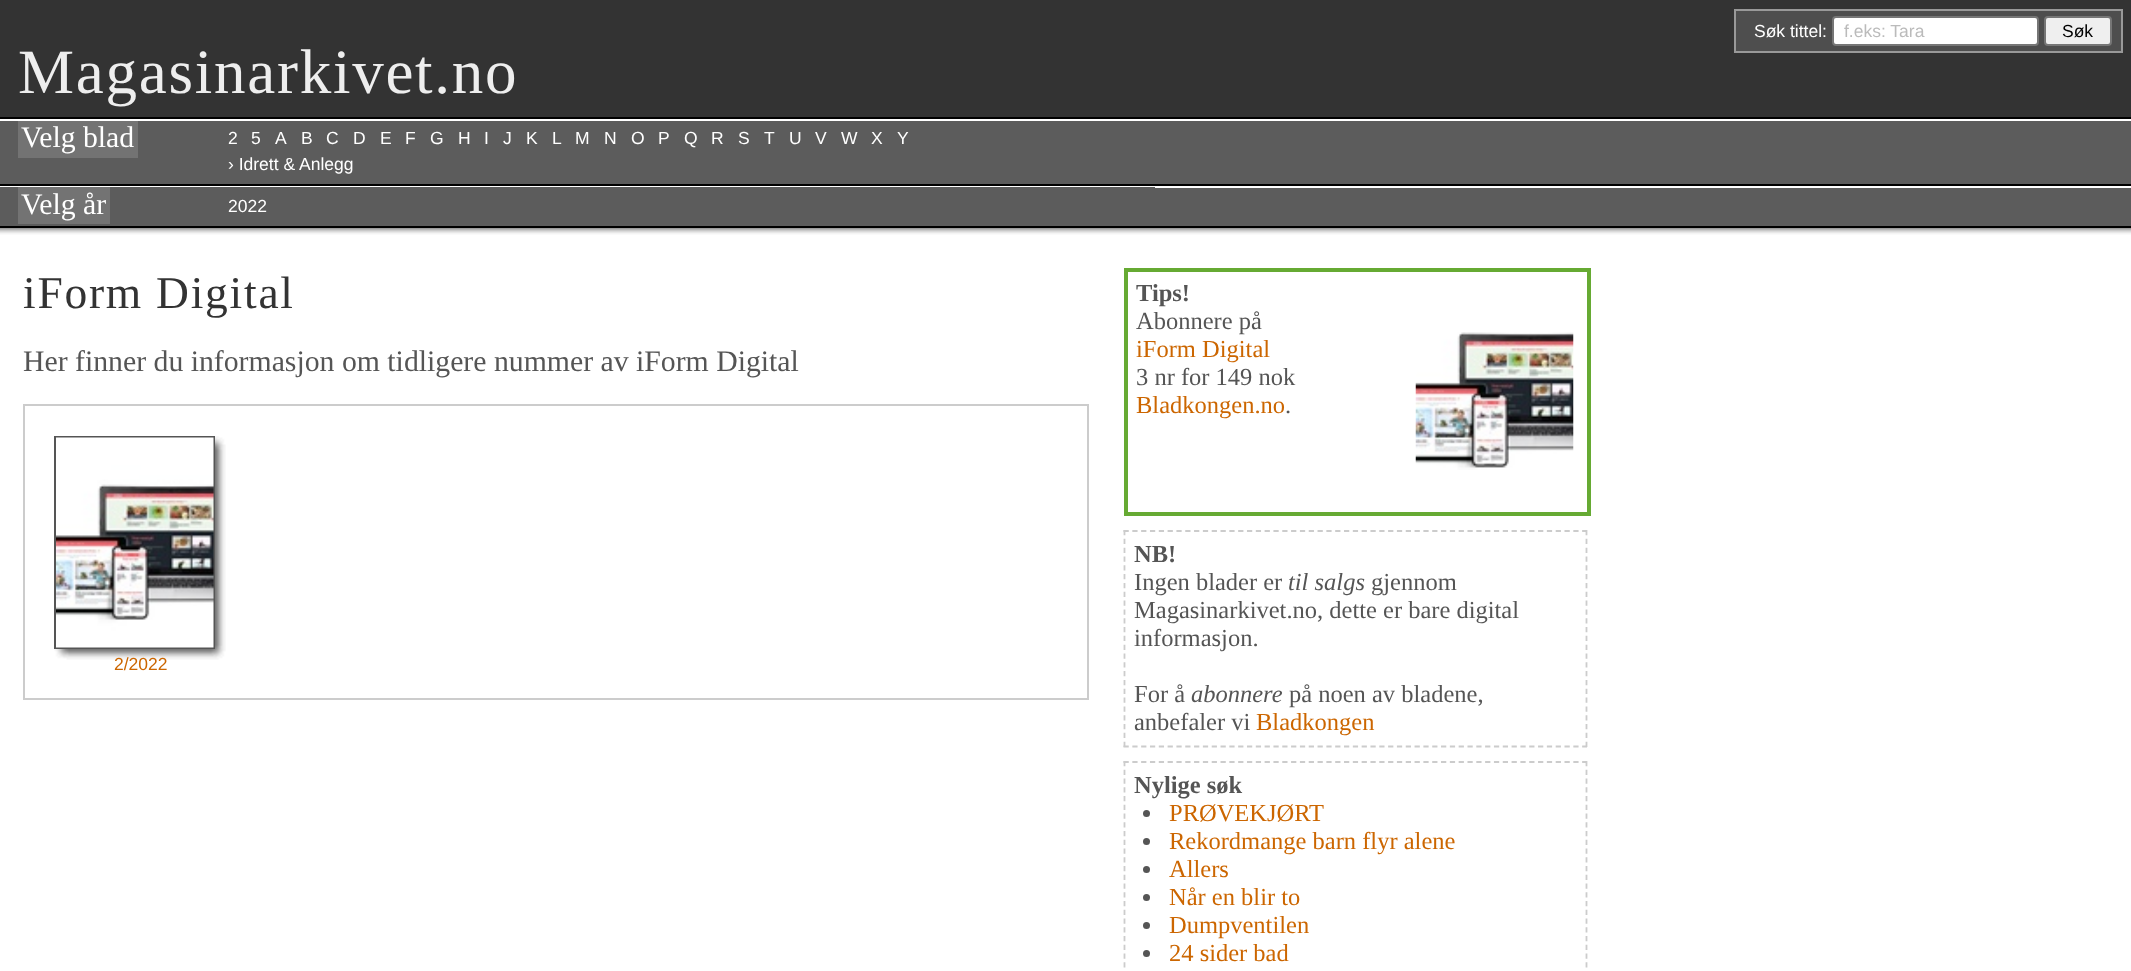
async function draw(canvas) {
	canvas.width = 2131;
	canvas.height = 971;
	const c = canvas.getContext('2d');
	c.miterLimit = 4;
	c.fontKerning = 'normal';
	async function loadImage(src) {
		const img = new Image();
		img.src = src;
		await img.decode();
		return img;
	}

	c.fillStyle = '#fff';
	c.fillRect(0, 0, 2131, 971);
	c.fillStyle = '#333';
	c.fillRect(0, 0, 2131, 117);
	c.fillStyle = '#000';
	c.fillRect(0, 117, 2131, 2);
	c.fillStyle = '#4e4e4e';
	c.beginPath();
	c.rect(1735, 10, 387, 42);
	c.fill();
	c.strokeStyle = '#999';
	c.lineWidth = 2;
	c.stroke();
	c.font = '17.5px Liberation Sans';
	c.fillStyle = '#fff';
	c.fillText('Søk tittel:', 1754, 37);
	c.beginPath();
	c.roundRect(1833, 17, 205, 28, 3);
	c.fill();
	c.strokeStyle = '#767676';
	c.stroke();
	c.fillStyle = '#bbb';
	c.fillText('f.eks: Tara', 1844, 37);
	c.fillStyle = '#efefef';
	c.beginPath();
	c.roundRect(2045, 17, 66, 28, 3);
	c.fill();
	c.stroke();
	c.fillStyle = '#000';
	c.fillText('Søk', 2062, 37);
	c.letterSpacing = '1.75px';
	c.font = '63px Liberation Serif';
	c.fillStyle = '#eee';
	c.fillText('Magasinarkivet.no', 18, 93);
	for (const [x, y, w, h, color] of [
		[0, 121, 2131, 63, '#5c5c5c'],
		[0, 184, 2131, 2, '#000'],
		[18, 121, 120, 37, '#737373'],
	]) {
		c.fillStyle = color;
		c.fillRect(x, y, w, h);
	}
	c.letterSpacing = '0px';
	c.font = '29.75px Liberation Serif';
	c.fillStyle = '#fff';
	c.fillText('Velg blad', 21, 147);
	c.font = '17.5px Liberation Sans';
	for (const [text, x, y] of [
		['2', 228, 144],
		['5', 251, 144],
		['A', 275, 144],
		['B', 301, 144],
		['C', 326, 144],
		['D', 353, 144],
		['E', 380, 144],
		['F', 405, 144],
		['G', 430, 144],
		['H', 458, 144],
		['I', 484, 144],
		['J', 503, 144],
		['K', 526, 144],
		['L', 552, 144],
		['M', 575, 144],
		['N', 604, 144],
		['O', 631, 144],
		['P', 658, 144],
		['Q', 684, 144],
		['R', 711, 144],
		['S', 738, 144],
		['T', 764, 144],
		['U', 789, 144],
		['V', 815, 144],
		['W', 841, 144],
		['X', 871, 144],
		['Y', 897, 144],
		['› Idrett & Anlegg', 228, 170],
	]) {
		c.fillText(text, x, y);
	}
	for (const [x, y, w, h, color] of [
		[0, 188, 2131, 38, '#5c5c5c'],
		[0, 226, 2131, 2, '#000'],
		[0, 187, 1155, 1, '#5c5c5c'],
		[18, 187, 92, 37, '#737373'],
	]) {
		c.fillStyle = color;
		c.fillRect(x, y, w, h);
	}
	c.font = '29.75px Liberation Serif';
	c.fillStyle = '#fff';
	c.fillText('Velg år', 21, 214);
	c.font = '17.5px Liberation Sans';
	c.fillText('2022', 228, 212);
	c.drawImage(await loadImage('img1.png'), 0, 228, 2131, 7);
	c.letterSpacing = '1.75px';
	c.font = '45.5px Liberation Serif';
	c.fillStyle = '#333';
	c.fillText('iForm Digital', 23, 308);
	c.letterSpacing = '0px';
	c.font = '29.75px Liberation Serif';
	c.fillStyle = '#555';
	c.fillText('Her finner du informasjon om tidligere nummer av iForm Digital', 23, 371);
	c.strokeStyle = '#ccc';
	c.strokeRect(24, 405, 1064, 294);
	c.drawImage(await loadImage('img2.png'), 54, 436, 172, 224);
	c.strokeStyle = '#555';
	c.strokeRect(55, 437, 159, 211);
	c.drawImage(await loadImage('img3.png'), 56, 437, 158, 211);
	c.font = '17.5px Liberation Sans';
	c.fillStyle = '#c60';
	c.fillText('2/2022', 114, 670);
	c.strokeStyle = '#6a3';
	c.lineWidth = 4;
	c.strokeRect(1126, 270, 463, 244);
	c.font = 'bold 24.5px Liberation Serif';
	c.fillStyle = '#555';
	c.fillText('Tips!', 1136, 301);
	c.font = '24.5px Liberation Serif';
	c.fillText('Abonnere på', 1136, 329);
	c.fillStyle = '#c60';
	c.fillText('iForm Digital', 1136, 357);
	c.drawImage(await loadImage('img4.png'), 1415, 332, 159, 138);
	c.fillStyle = '#555';
	c.fillText('3 nr for 149 nok', 1136, 385);
	c.fillStyle = '#c60';
	c.fillText('Bladkongen.no', 1136, 413);
	c.fillStyle = '#555';
	c.fillText('.', 1285, 413);
	c.beginPath();
	c.moveTo(1123.5, 531);
	c.lineTo(1587, 531);
	c.strokeStyle = '#ccc';
	c.lineWidth = 1.8;
	c.setLineDash([5.25, 3.57]);
	c.stroke();
	c.beginPath();
	c.moveTo(1586.5, 530);
	c.lineTo(1586.5, 747);
	c.stroke();
	c.beginPath();
	c.moveTo(1123.5, 746.5);
	c.lineTo(1587, 746.5);
	c.stroke();
	c.beginPath();
	c.moveTo(1124.5, 530);
	c.lineTo(1124.5, 747);
	c.stroke();
	c.font = 'bold 24.5px Liberation Serif';
	c.fillText('NB!', 1134, 562);
	c.font = '24.5px Liberation Serif';
	c.fillText('Ingen blader er', 1134, 590);
	c.font = 'italic 24.5px Liberation Serif';
	c.fillText('til salgs', 1288, 590);
	c.font = '24.5px Liberation Serif';
	for (const [text, x, y] of [
		['gjennom', 1371, 590],
		['Magasinarkivet.no, dette er bare digital', 1134, 618],
		['informasjon.', 1134, 646],
		['For å', 1134, 702],
	]) {
		c.fillText(text, x, y);
	}
	c.font = 'italic 24.5px Liberation Serif';
	c.fillText('abonnere', 1191, 702);
	c.font = '24.5px Liberation Serif';
	c.fillText('på noen av bladene,', 1289, 702);
	c.fillText('anbefaler vi', 1134, 730);
	c.fillStyle = '#c60';
	c.fillText('Bladkongen', 1256, 730);
	c.beginPath();
	c.moveTo(1123.5, 762);
	c.lineTo(1587, 762);
	c.stroke();
	c.beginPath();
	c.moveTo(1586.5, 761);
	c.lineTo(1586.5, 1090);
	c.setLineDash([5.25, 3.5]);
	c.stroke();
	c.beginPath();
	c.moveTo(1124.5, 761);
	c.lineTo(1124.5, 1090);
	c.stroke();
	c.font = 'bold 24.5px Liberation Serif';
	c.fillStyle = '#555';
	c.fillText('Nylige søk', 1134, 793);
	c.beginPath();
	c.arc(1146.5, 813.5, 3.5, 0, 2 * Math.PI);
	c.fill();
	c.font = '24.5px Liberation Serif';
	c.fillStyle = '#c60';
	c.fillText('PRØVEKJØRT', 1169, 821);
	c.fillStyle = '#555';
	c.beginPath();
	c.arc(1146.5, 841.5, 3.5, 0, 2 * Math.PI);
	c.fill();
	c.fillStyle = '#c60';
	c.fillText('Rekordmange barn flyr alene', 1169, 849);
	c.fillStyle = '#555';
	c.beginPath();
	c.arc(1146.5, 869.5, 3.5, 0, 2 * Math.PI);
	c.fill();
	c.fillStyle = '#c60';
	c.fillText('Allers', 1169, 877);
	c.fillStyle = '#555';
	c.beginPath();
	c.arc(1146.5, 897.5, 3.5, 0, 2 * Math.PI);
	c.fill();
	c.fillStyle = '#c60';
	c.fillText('Når en blir to', 1169, 905);
	c.fillStyle = '#555';
	c.beginPath();
	c.arc(1146.5, 925.5, 3.5, 0, 2 * Math.PI);
	c.fill();
	c.fillStyle = '#c60';
	c.fillText('Dumpventilen', 1169, 933);
	c.fillStyle = '#555';
	c.beginPath();
	c.arc(1146.5, 953.5, 3.5, 0, 2 * Math.PI);
	c.fill();
	c.fillStyle = '#c60';
	c.fillText('24 sider bad', 1169, 961);
}

draw(document.querySelector('canvas'));
